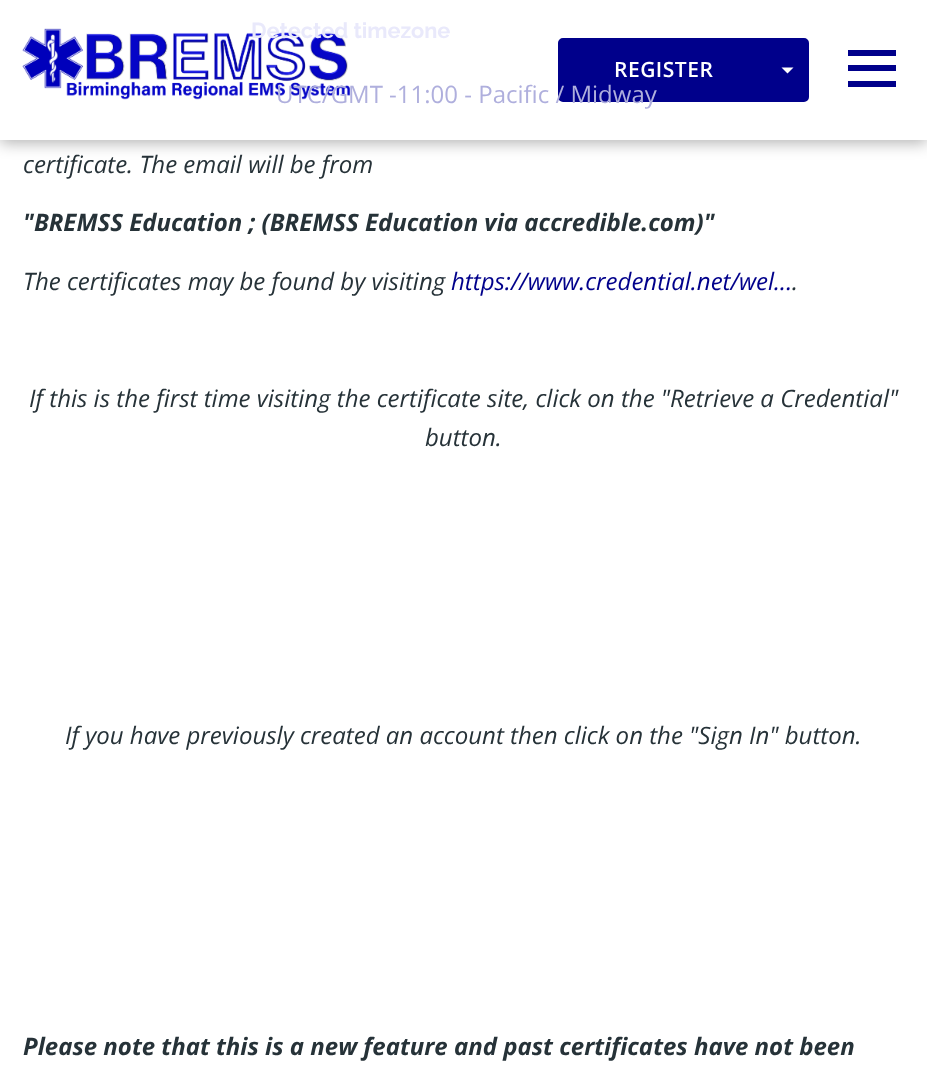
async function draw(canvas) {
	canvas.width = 927;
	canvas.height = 1065;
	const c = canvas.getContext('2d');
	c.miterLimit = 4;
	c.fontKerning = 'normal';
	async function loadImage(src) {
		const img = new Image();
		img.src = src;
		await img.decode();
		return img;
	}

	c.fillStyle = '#fff';
	c.fillRect(0, 0, 927, 1065);
	c.fillStyle = '#0000004d';
	c.filter = 'blur(7.5px)';
	c.beginPath();
	c.rect(0, 3, 927, 140);
	c.fill();
	c.filter = 'none';
	c.fillStyle = '#fff';
	c.fillRect(0, 0, 927, 140);
	c.drawImage(await loadImage('img1.png'), 22, 28, 328, 72);
	c.font = '100 21.75px Raleway';
	c.fillStyle = '#e9e9fb';
	c.fillText('Detected timezone', 251, 38);
	c.fillStyle = '#00008b';
	c.beginPath();
	c.roundRect(559.5, 39.5, 207, 61, [3.5, 0, 0, 3.5]);
	c.fill();
	c.strokeStyle = '#00008b';
	c.lineWidth = 3;
	c.stroke();
	c.font = '24px Open Sans';
	c.fillStyle = '#afafdd';
	c.fillText('UTC/GMT -11:00 - Pacific / Midway', 276, 103);
	c.letterSpacing = '0.5px';
	c.font = '600 21px Open Sans';
	c.fillStyle = '#fff';
	c.fillText('REGISTER', 614, 77);
	c.fillStyle = '#00008b';
	c.beginPath();
	c.roundRect(768.5, 39.5, 39, 61, [0, 3.5, 3.5, 0]);
	c.fill();
	c.stroke();
	c.fillStyle = '#fff';
	c.beginPath();
	c.moveTo(781.5, 67.5);
	c.lineTo(793.5, 67.5);
	c.lineTo(787.5, 73.5);
	c.closePath();
	c.fill();
	for (const [x, y, w, h, color] of [
		[848, 50, 48, 6, '#00008b'],
		[848, 65, 48, 6, '#00008b'],
		[848, 81, 48, 6, '#00008b'],
	]) {
		c.fillStyle = color;
		c.fillRect(x, y, w, h);
	}
	c.letterSpacing = '0px';
	c.font = 'italic 24px Open Sans';
	c.fillStyle = '#263238';
	c.fillText('certificate. The email will be from', 23, 173);
	c.font = 'italic bold 24px Open Sans';
	c.fillText('"BREMSS Education ; (BREMSS Education via accredible.com)"', 23, 231);
	c.font = 'italic 24px Open Sans';
	c.fillText('The certificates may be found by visiting', 23, 290);
	c.fillStyle = '#00008b';
	c.fillText('https://www.credential.net/wel...', 451, 290);
	c.fillStyle = '#263238';
	for (const [text, x, y] of [
		['.', 792, 290],
		['If this is the first time visiting the certificate site, click on the "Retrieve a Credential"', 29, 407],
		['button.', 425, 446],
		['If you have previously created an account then click on the "Sign In" button.', 65, 744],
	]) {
		c.fillText(text, x, y);
	}
	c.font = 'italic bold 24px Open Sans';
	c.fillText('Please note that this is a new feature and past certificates have not been', 23, 1055);
}

draw(document.querySelector('canvas'));
